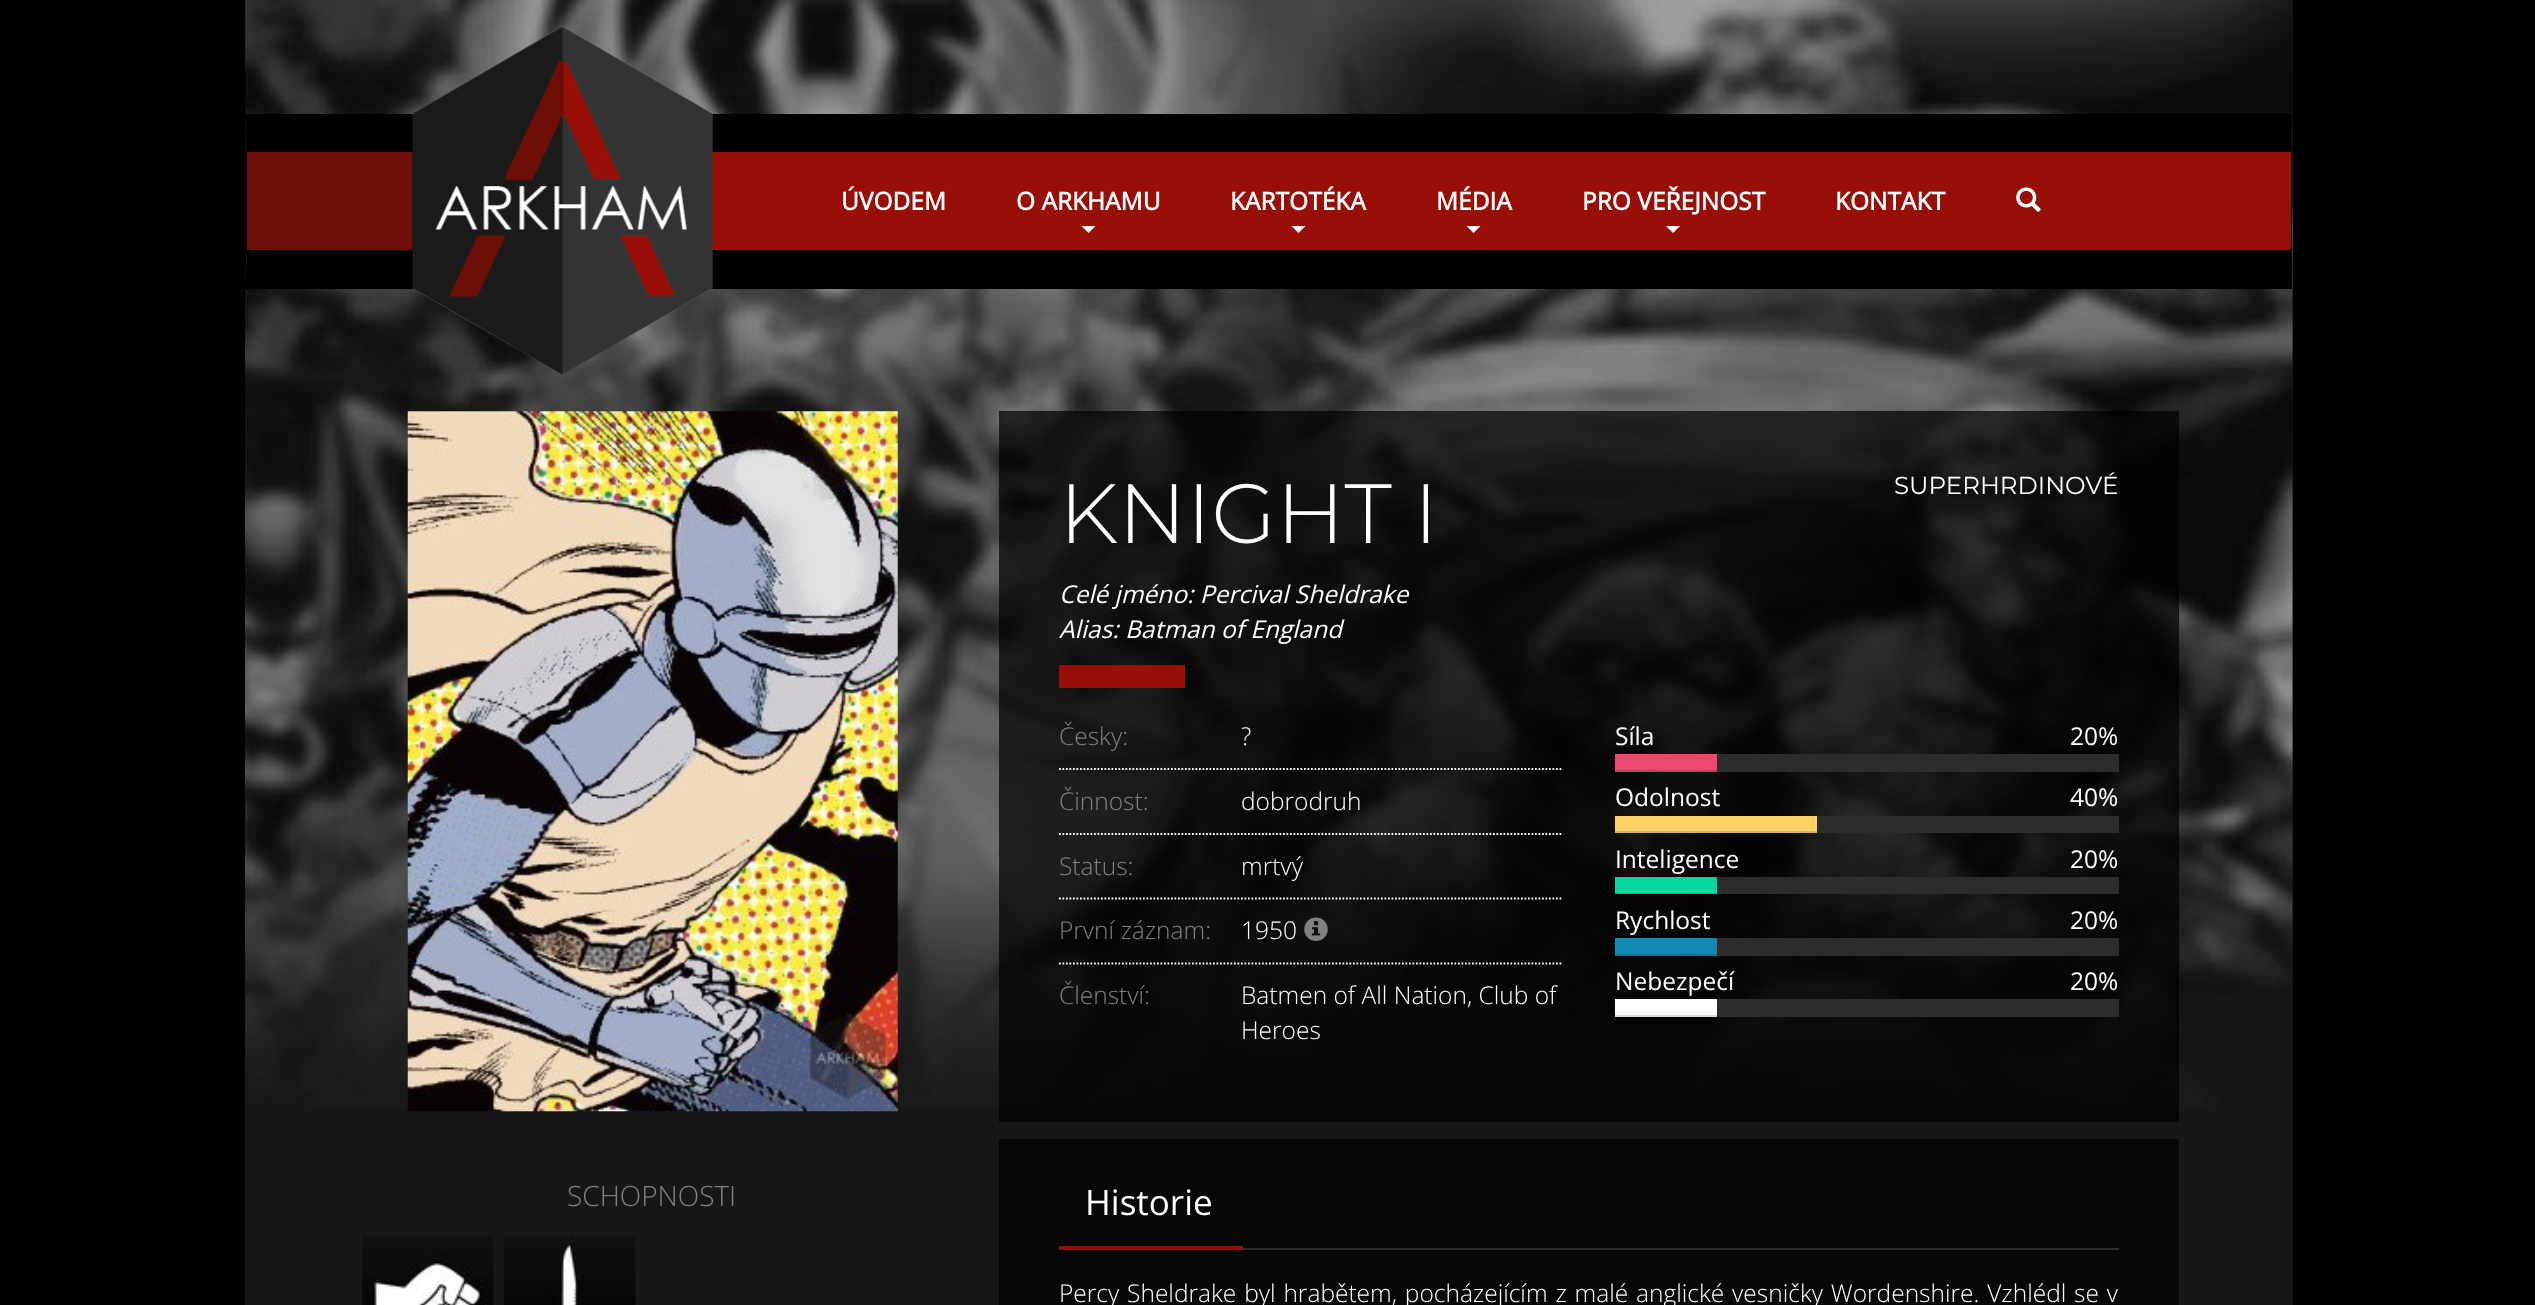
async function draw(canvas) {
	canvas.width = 2535;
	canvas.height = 1305;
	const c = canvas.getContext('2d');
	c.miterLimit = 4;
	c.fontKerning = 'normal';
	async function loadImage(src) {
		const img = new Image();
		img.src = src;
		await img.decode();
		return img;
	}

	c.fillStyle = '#000';
	c.fillRect(0, 0, 2535, 1305);
	c.fillStyle = '#171718';
	c.fillRect(245, 0, 2048, 1305);
	c.drawImage(await loadImage('img1.png'), 245, 0, 2048, 1109);
	c.fillStyle = '#6d0f07';
	c.fillRect(247, 152, 166, 98);
	c.fillStyle = '#980f07';
	c.fillRect(712, 152, 1579, 98);
	c.fillStyle = '#000';
	c.beginPath();
	c.moveTo(245, 114);
	c.lineTo(2292, 114);
	c.lineTo(2291, 152);
	c.lineTo(247, 152);
	c.closePath();
	c.fill();
	c.fillStyle = '#080808';
	c.beginPath();
	c.moveTo(2292, 114);
	c.lineTo(2292, 289);
	c.lineTo(2291, 250);
	c.lineTo(2291, 152);
	c.closePath();
	c.fill();
	c.fillStyle = '#000';
	c.beginPath();
	c.moveTo(2292, 289);
	c.lineTo(245, 289);
	c.lineTo(247, 250);
	c.lineTo(2291, 250);
	c.closePath();
	c.fill();
	c.drawImage(await loadImage('img2.png'), 412, 26, 301, 349);
	c.fillStyle = '#080808';
	c.beginPath();
	c.moveTo(245, 289);
	c.lineTo(245, 114);
	c.lineTo(247, 152);
	c.lineTo(247, 250);
	c.closePath();
	c.fill();
	c.font = 'bold 24.5px Open Sans';
	c.fillStyle = '#fff';
	c.fillText('ÚVODEM', 841, 210);
	c.fillText('O ARKHAMU', 1016, 210);
	c.beginPath();
	c.moveTo(1081.5, 226);
	c.lineTo(1095.5, 226);
	c.lineTo(1088.5, 233);
	c.closePath();
	c.fill();
	c.fillText('KARTOTÉKA', 1230, 210);
	c.beginPath();
	c.moveTo(1291.5, 226);
	c.lineTo(1305.5, 226);
	c.lineTo(1298.5, 233);
	c.closePath();
	c.fill();
	c.fillText('MÉDIA', 1436, 210);
	c.beginPath();
	c.moveTo(1466.5, 226);
	c.lineTo(1480.5, 226);
	c.lineTo(1473.5, 233);
	c.closePath();
	c.fill();
	c.fillText('PRO VEŘEJNOST', 1582, 210);
	c.beginPath();
	c.moveTo(1666, 226);
	c.lineTo(1680, 226);
	c.lineTo(1673, 233);
	c.closePath();
	c.fill();
	c.fillText('KONTAKT', 1835, 210);
	c.drawImage(await loadImage('img3.png'), 2016, 187, 25, 25);
	c.drawImage(await loadImage('img4.png'), 407, 411, 491, 701);
	c.font = '300 28px Open Sans';
	c.fillStyle = '#808080';
	c.fillText('SCHOPNOSTI', 567, 1206);
	c.drawImage(await loadImage('img5.png'), 362, 1236, 132, 69);
	c.drawImage(await loadImage('img6.png'), 504, 1235, 132, 70);
	c.fillStyle = '#000000b3';
	c.fillRect(999, 411, 1180, 711);
	c.font = '300 84px Montserrat';
	c.fillStyle = '#fff';
	c.fillText('KNIGHT I', 1059, 543);
	c.font = '24.5px Montserrat';
	c.fillText('SUPERHRDINOVÉ', 1894, 494);
	c.font = 'italic 24.5px Open Sans';
	c.fillText('Celé jméno: Percival Sheldrake', 1059, 603);
	c.fillText('Alias: Batman of England', 1059, 638);
	c.fillStyle = '#970f07';
	c.fillRect(1059, 665, 126, 23);
	c.font = '300 24.5px Open Sans';
	c.fillStyle = '#808080';
	c.fillText('Česky:', 1059, 745);
	c.fillStyle = '#fff';
	c.fillText('?', 1241, 745);
	c.beginPath();
	c.moveTo(1059, 769);
	c.lineTo(1241, 769);
	c.strokeStyle = '#fff';
	c.lineWidth = 1.8;
	c.setLineDash([1.75, 1.75]);
	c.stroke();
	c.fillStyle = '#808080';
	c.fillText('Činnost:', 1059, 810);
	c.beginPath();
	c.moveTo(1241, 769);
	c.lineTo(1563, 769);
	c.stroke();
	c.fillStyle = '#fff';
	c.fillText('dobrodruh', 1241, 810);
	c.beginPath();
	c.moveTo(1059, 834);
	c.lineTo(1241, 834);
	c.stroke();
	c.fillStyle = '#808080';
	c.fillText('Status:', 1059, 875);
	c.beginPath();
	c.moveTo(1241, 834);
	c.lineTo(1563, 834);
	c.stroke();
	c.fillStyle = '#fff';
	c.fillText('mrtvý', 1241, 875);
	c.beginPath();
	c.moveTo(1059, 898.5);
	c.lineTo(1241, 898.5);
	c.stroke();
	c.fillStyle = '#808080';
	c.fillText('První záznam:', 1059, 939);
	c.beginPath();
	c.moveTo(1241, 898.5);
	c.lineTo(1563, 898.5);
	c.stroke();
	c.fillStyle = '#fff';
	c.fillText('1950', 1241, 939);
	c.drawImage(await loadImage('img7.png'), 1304, 917, 24, 24);
	c.beginPath();
	c.moveTo(1059, 963.5);
	c.lineTo(1241, 963.5);
	c.stroke();
	c.fillStyle = '#808080';
	c.fillText('Členství:', 1059, 1004);
	c.beginPath();
	c.moveTo(1241, 963.5);
	c.lineTo(1563, 963.5);
	c.stroke();
	c.fillStyle = '#fff';
	c.fillText('Batmen of All Nation, Club of', 1241, 1004);
	c.fillText('Heroes', 1241, 1039);
	c.font = '24.5px Open Sans';
	c.fillText('Síla', 1615, 745);
	c.fillText('20%', 2070, 745);
	for (const [x, y, w, h, color] of [
		[1717, 754, 402, 18, '#2c2c2c'],
		[1615, 754, 102, 16, '#ef476f'],
		[1615, 770, 102, 2, '#cb3c5e'],
	]) {
		c.fillStyle = color;
		c.fillRect(x, y, w, h);
	}
	c.fillStyle = '#fff';
	c.fillText('Odolnost', 1615, 806);
	c.fillText('40%', 2070, 806);
	for (const [x, y, w, h, color] of [
		[1817, 816, 302, 17, '#2c2c2c'],
		[1615, 816, 202, 15, '#ffd166'],
		[1615, 831, 202, 2, '#d9b257'],
	]) {
		c.fillStyle = color;
		c.fillRect(x, y, w, h);
	}
	c.fillStyle = '#fff';
	c.fillText('Inteligence', 1615, 868);
	c.fillText('20%', 2070, 868);
	for (const [x, y, w, h, color] of [
		[1717, 877, 402, 17, '#2c2c2c'],
		[1615, 877, 102, 16, '#06d6a0'],
		[1615, 893, 102, 1, '#05b688'],
	]) {
		c.fillStyle = color;
		c.fillRect(x, y, w, h);
	}
	c.fillStyle = '#fff';
	c.fillText('Rychlost', 1615, 929);
	c.fillText('20%', 2070, 929);
	for (const [x, y, w, h, color] of [
		[1717, 938, 402, 18, '#2c2c2c'],
		[1615, 938, 102, 16, '#118ab2'],
		[1615, 954, 102, 2, '#0e7597'],
	]) {
		c.fillStyle = color;
		c.fillRect(x, y, w, h);
	}
	c.fillStyle = '#fff';
	c.fillText('Nebezpečí', 1615, 990);
	c.fillText('20%', 2070, 990);
	for (const [x, y, w, h, color] of [
		[1717, 999, 402, 18, '#2c2c2c'],
		[1615, 999, 102, 16, '#fff'],
		[1615, 1015, 102, 2, '#d9d9d9'],
		[999, 1139, 1180, 166, '#070707'],
		[1243, 1248, 876, 2, '#2c2c2c'],
		[1059, 1246, 184, 4, '#970f07'],
	]) {
		c.fillStyle = color;
		c.fillRect(x, y, w, h);
	}
	c.font = '35px Open Sans';
	c.fillStyle = '#fff';
	c.fillText('Historie', 1085, 1215);
	c.wordSpacing = '1.5px';
	c.font = '300 24.5px Open Sans';
	c.fillText('Percy Sheldrake byl hrabětem, pocházejícím z malé anglické vesničky Wordenshire. Vzhlédl se v', 1059, 1302);
}

draw(document.querySelector('canvas'));
